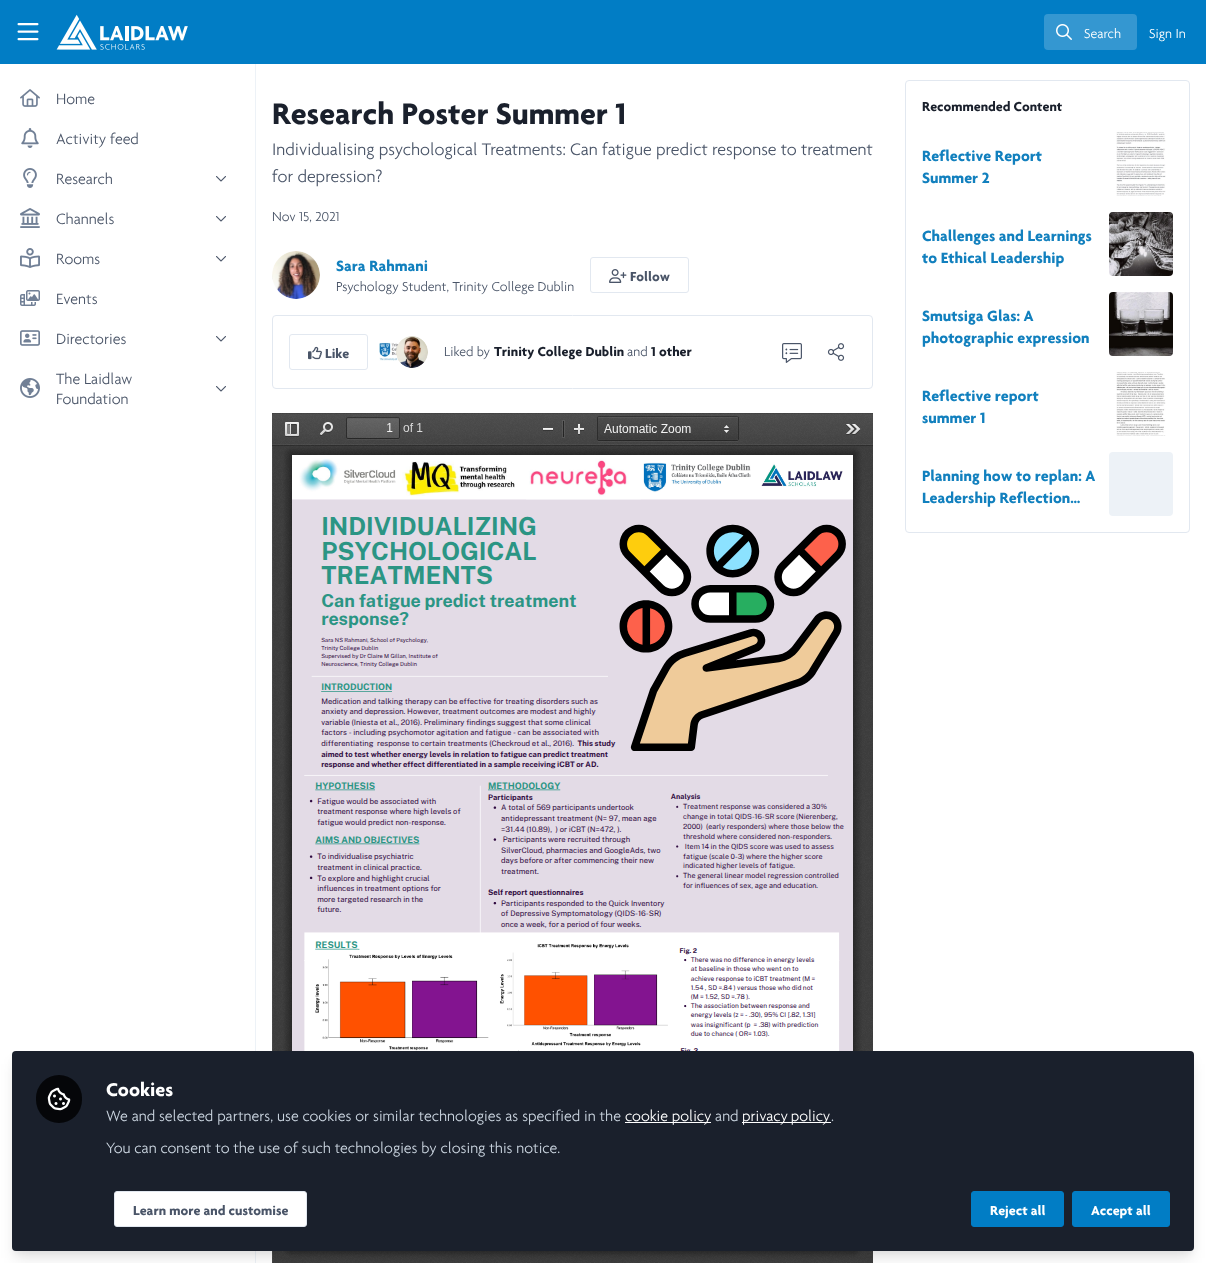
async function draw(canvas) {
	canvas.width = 1206;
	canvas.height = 1263;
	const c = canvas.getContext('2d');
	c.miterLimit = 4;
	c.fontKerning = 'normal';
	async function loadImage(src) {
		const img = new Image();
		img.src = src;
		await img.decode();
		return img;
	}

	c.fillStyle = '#fff';
	c.fillRect(0, 0, 1206, 1263);
	c.fillStyle = '#017dc5';
	c.fillRect(0, 0, 1206, 64);
	c.drawImage(await loadImage('img1.png'), 17, 23, 22, 18);
	c.drawImage(await loadImage('img2.png'), 56, 14, 132, 36);
	c.fillStyle = '#3497d1';
	c.beginPath();
	c.roundRect(1044, 14, 93, 36, 4);
	c.fill();
	c.drawImage(await loadImage('img3.png'), 1056, 24, 16, 16);
	c.font = '300 14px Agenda';
	c.fillStyle = '#fff';
	c.fillText('Search', 1084, 38);
	c.fillText('Sign In', 1149, 38);
	c.fillStyle = '#edf2f7';
	c.fillRect(255, 64, 1, 1199);
	c.drawImage(await loadImage('img4.png'), 20, 89, 20, 18);
	c.font = '300 16px Agenda';
	c.fillStyle = '#4a5568';
	c.fillText('Home', 56, 104);
	c.drawImage(await loadImage('img5.png'), 21, 128, 18, 20);
	c.fillText('Activity feed', 56, 144);
	c.drawImage(await loadImage('img6.png'), 23, 168, 14, 20);
	c.fillText('Research', 56, 184);
	c.drawImage(await loadImage('img7.png'), 216, 176, 10, 6);
	c.drawImage(await loadImage('img8.png'), 20, 208, 20, 20);
	c.fillText('Channels', 56, 224);
	c.drawImage(await loadImage('img7.png'), 216, 216, 10, 6);
	c.drawImage(await loadImage('img9.png'), 20, 248, 20, 20);
	c.fillText('Rooms', 56, 264);
	c.drawImage(await loadImage('img7.png'), 216, 256, 10, 6);
	c.drawImage(await loadImage('img10.png'), 20, 290, 20, 16);
	c.fillText('Events', 56, 304);
	c.drawImage(await loadImage('img11.png'), 20, 330, 20, 16);
	c.fillText('Directories', 56, 344);
	c.drawImage(await loadImage('img7.png'), 216, 336, 10, 6);
	c.drawImage(await loadImage('img12.png'), 20, 378, 20, 20);
	c.fillText('The Laidlaw', 56, 384);
	c.fillText('Foundation', 56, 404);
	c.drawImage(await loadImage('img7.png'), 216, 386, 10, 6);
	c.font = 'bold 32px Agenda';
	c.fillStyle = '#1a202c';
	c.fillText('Research Poster Summer 1', 272, 124);
	c.font = '300 18px Agenda';
	c.fillStyle = '#4a5568';
	c.fillText('Individualising psychological Treatments: Can fatigue predict response to treatment', 272, 155);
	c.fillText('for depression?', 272, 182);
	c.font = '300 14px Agenda';
	c.fillText('Nov 15, 2021', 272, 221);
	c.drawImage(await loadImage('img13.png'), 272, 251, 48, 48);
	c.font = 'bold 16px Agenda';
	c.fillStyle = '#1280be';
	c.fillText('Sara Rahmani', 336, 271);
	c.font = '300 14px Agenda';
	c.fillStyle = '#4a5568';
	c.fillText('Psychology Student, Trinity College Dublin', 336, 291);
	c.beginPath();
	c.roundRect(590.5, 257.5, 98, 35, 2.5);
	c.strokeStyle = '#e2e8f0';
	c.stroke();
	c.drawImage(await loadImage('img14.png'), 609, 269, 18, 14);
	c.font = 'bold 14px Agenda';
	c.fillText('Follow', 630, 281);
	c.beginPath();
	c.roundRect(272.5, 315.5, 600, 73, 3.5);
	c.stroke();
	c.beginPath();
	c.roundRect(289.5, 334.5, 78, 35, 2.5);
	c.stroke();
	c.drawImage(await loadImage('img15.png'), 308, 346, 14, 14);
	c.fillText('Like', 325, 358);
	c.drawImage(await loadImage('img16.png'), 379, 342, 21, 19);
	c.drawImage(await loadImage('img17.png'), 396, 336, 32, 32);
	c.font = '300 14px Agenda';
	c.fillText('Liked by', 444, 356);
	c.font = 'bold 14px Agenda';
	c.fillStyle = '#1a202c';
	c.fillText('Trinity College Dublin', 494, 356);
	c.font = '300 14px Agenda';
	c.fillStyle = '#4a5568';
	c.fillText('and', 627, 356);
	c.font = 'bold 14px Agenda';
	c.fillStyle = '#1a202c';
	c.fillText('1 other', 651, 356);
	c.drawImage(await loadImage('img18.png'), 782, 343, 20, 20);
	c.drawImage(await loadImage('img19.png'), 827, 343, 18, 18);
	c.drawImage(await loadImage('img20.png'), 272, 413, 601, 850);
	c.beginPath();
	c.roundRect(905.5, 80.5, 284, 452, 3.5);
	c.stroke();
	c.fillText('Recommended Content', 922, 111);
	c.font = 'bold 16px Agenda';
	c.fillStyle = '#1280be';
	c.fillText('Reflective Report', 922, 161);
	c.fillText('Summer 2', 922, 183);
	c.drawImage(await loadImage('img21.png'), 1109, 132, 64, 64);
	c.fillText('Challenges and Learnings', 922, 241);
	c.fillText('to Ethical Leadership', 922, 263);
	c.drawImage(await loadImage('img22.png'), 1109, 212, 64, 64);
	c.fillText('Smutsiga Glas: A', 922, 321);
	c.fillText('photographic expression', 922, 343);
	c.drawImage(await loadImage('img23.png'), 1109, 292, 64, 64);
	c.fillText('Reflective report', 922, 401);
	c.fillText('summer 1', 922, 423);
	c.drawImage(await loadImage('img24.png'), 1109, 372, 64, 64);
	c.fillText('Planning how to replan: A', 922, 481);
	c.fillText('Leadership Reflection…', 922, 503);
	c.fillStyle = '#edf2f7';
	c.beginPath();
	c.roundRect(1109, 452, 64, 64, 4);
	c.fill();
	c.fillStyle = '#0000000d';
	c.filter = 'blur(3px)';
	c.beginPath();
	c.roundRect(14, 1057, 1178, 196, 2);
	c.fill();
	c.filter = 'none';
	c.fillStyle = '#0000001a';
	c.filter = 'blur(7.5px)';
	c.beginPath();
	c.roundRect(15, 1064, 1176, 194, 1);
	c.fill();
	c.filter = 'none';
	c.fillStyle = '#1a202c';
	c.beginPath();
	c.roundRect(12, 1051, 1182, 200, 4);
	c.fill();
	c.fillStyle = '#050609';
	c.beginPath();
	c.roundRect(36, 1075, 46, 48, 23);
	c.fill();
	c.drawImage(await loadImage('img25.png'), 47, 1087, 24, 24);
	c.font = 'bold 20px Agenda';
	c.fillStyle = '#fff';
	c.fillText('Cookies', 106, 1096);
	c.font = '300 16px Agenda';
	c.fillStyle = '#cbd5e0';
	c.fillText('We and selected partners, use cookies or similar technologies as specified in the', 106, 1121);
	c.fillStyle = '#fff';
	c.fillRect(625, 1122, 86, 1);
	c.fillText('cookie policy', 625, 1121);
	c.fillStyle = '#cbd5e0';
	c.fillText('and', 715, 1121);
	c.fillStyle = '#fff';
	c.fillRect(742, 1122, 89, 1);
	c.wordSpacing = '-1px';
	c.fillText('privacy policy', 742, 1121);
	c.wordSpacing = '0px';
	c.fillStyle = '#cbd5e0';
	c.fillText('.', 831, 1121);
	c.fillText('You can consent to the use of such technologies by closing this notice.', 106, 1153);
	c.fillStyle = '#fff';
	c.beginPath();
	c.roundRect(114.5, 1191.5, 192, 35, 2.5);
	c.fill();
	c.stroke();
	c.font = 'bold 14px Agenda';
	c.fillStyle = '#4a5568';
	c.fillText('Learn more and customise', 133, 1215);
	c.fillStyle = '#017dc5';
	c.beginPath();
	c.roundRect(971.5, 1191.5, 92, 35, 2.5);
	c.fill();
	c.strokeStyle = '#017dc5';
	c.stroke();
	c.fillStyle = '#fff';
	c.fillText('Reject all', 990, 1215);
	c.fillStyle = '#017dc5';
	c.beginPath();
	c.roundRect(1072.5, 1191.5, 97, 35, 2.5);
	c.fill();
	c.stroke();
	c.fillStyle = '#fff';
	c.fillText('Accept all', 1091, 1215);
}

draw(document.querySelector('canvas'));
